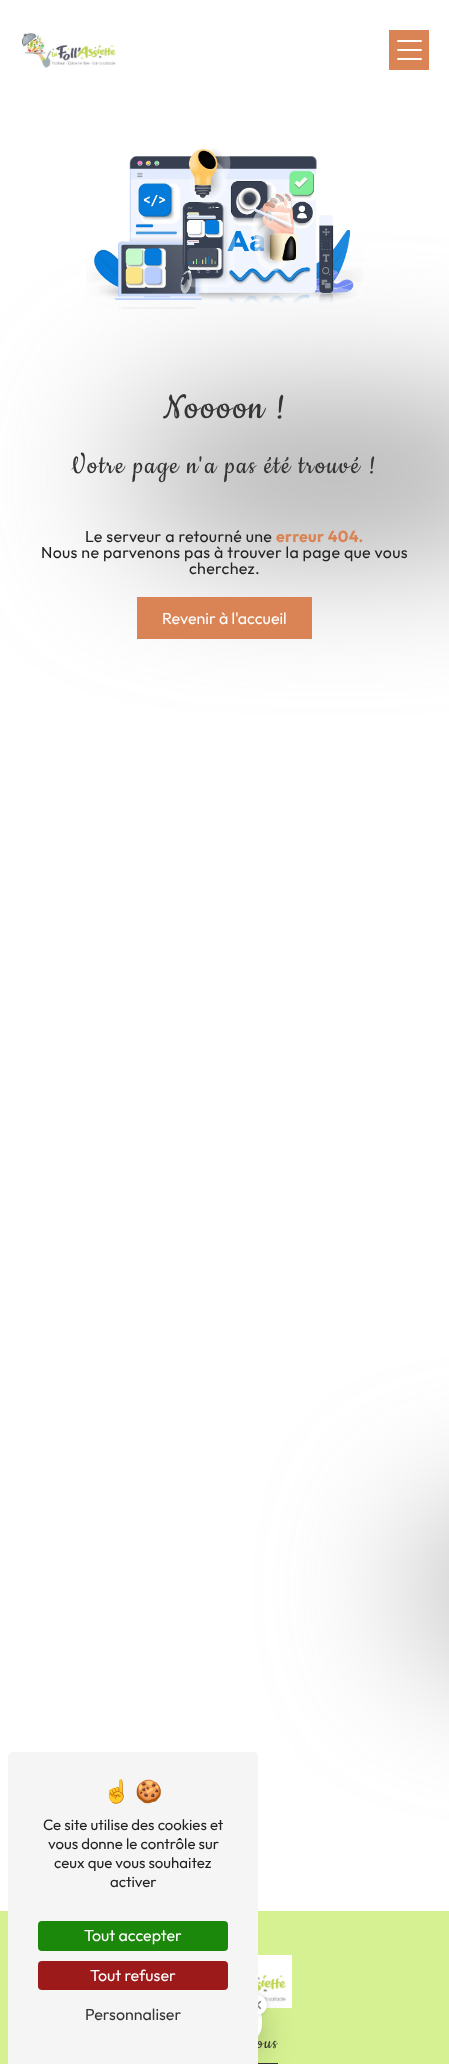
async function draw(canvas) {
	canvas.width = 449;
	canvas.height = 2064;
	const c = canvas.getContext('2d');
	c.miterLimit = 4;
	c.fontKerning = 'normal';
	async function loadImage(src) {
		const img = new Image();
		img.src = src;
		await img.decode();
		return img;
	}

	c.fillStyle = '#fff';
	c.fillRect(0, 0, 449, 2064);
	c.drawImage(await loadImage('img1.png'), 22, 33, 94, 35);
	c.fillStyle = '#da8355';
	c.fillRect(389, 30, 40, 40);
	c.fillStyle = '#fff';
	c.beginPath();
	c.roundRect(397, 49, 25, 2, 1);
	c.fill();
	c.beginPath();
	c.roundRect(397, 40, 25, 2, 1);
	c.fill();
	c.beginPath();
	c.roundRect(397, 58, 25, 2, 1);
	c.fill();
	c.fillStyle = '#808080';
	c.filter = 'blur(80px)';
	c.beginPath();
	c.roundRect(135, 425, 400, 100, 50);
	c.fill();
	c.filter = 'none';
	c.drawImage(await loadImage('img2.png'), 86, 148, 277, 161);
	c.filter = 'blur(80px)';
	c.beginPath();
	c.roundRect(427, 1539, 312, 100, 50);
	c.fill();
	c.filter = 'none';
	c.letterSpacing = '1.6px';
	c.font = '40px Cookie';
	c.fillStyle = '#353535';
	c.fillText('Noooon !', 163, 418);
	c.font = '28.75px Cookie';
	c.fillText('Votre page n\'a pas été trouvé !', 71, 473);
	c.letterSpacing = '0.3px';
	c.font = '16px Outfit';
	c.fillStyle = '#222';
	c.fillText('Le serveur a retourné une', 85, 542);
	c.font = 'bold 16px Outfit';
	c.fillStyle = '#da8355';
	c.fillText('erreur 404.', 276, 542);
	c.font = '16px Outfit';
	c.fillStyle = '#222';
	c.fillText('Nous ne parvenons pas à trouver la page que vous', 41, 558);
	c.fillText('cherchez.', 189, 574);
	c.fillStyle = '#da8355';
	c.fillRect(137, 597, 175, 42);
	c.letterSpacing = '0px';
	c.fillStyle = '#fff';
	c.fillText('Revenir à l\'accueil', 162, 624);
	c.fillStyle = '#d5f191';
	c.fillRect(0, 1911, 449, 153);
	c.drawImage(await loadImage('img4.png'), 258, 1955, 34, 53);
	c.fillStyle = '#353535';
	c.fillRect(258, 2063, 20, 1);
	c.fillStyle = '#00000026';
	c.filter = 'blur(15px)';
	c.beginPath();
	c.roundRect(187, 2010, 75, 44, 20);
	c.fill();
	c.filter = 'none';
	c.fillStyle = '#0000001a';
	c.filter = 'blur(20px)';
	c.beginPath();
	c.roundRect(187, 2015, 75, 44, 20);
	c.fill();
	c.filter = 'none';
	c.letterSpacing = '1.6px';
	c.font = '19px Cookie';
	c.fillStyle = '#353535';
	c.fillText('ous', 256, 2048);
	c.fillStyle = '#fff';
	c.beginPath();
	c.roundRect(187, 2000, 75, 44, 20);
	c.fill();
	c.fillStyle = '#00000026';
	c.filter = 'blur(2px)';
	c.beginPath();
	c.roundRect(247, 1995, 20, 20, 10);
	c.fill();
	c.filter = 'none';
	c.fillStyle = '#fff';
	c.beginPath();
	c.arc(257, 2005, 10, 0, 2 * Math.PI);
	c.fill();
	c.fillStyle = '#f5f5f5';
	c.beginPath();
	c.roundRect(8, 1752, 250, 312, [5, 5, 0, 0]);
	c.fill();
	c.letterSpacing = '0px';
	c.font = '22px Noto Color Emoji';
	c.fillStyle = '#222';
	c.fillText('☝', 103, 1799);
	c.fillText('🍪', 135, 1799);
	c.font = '15px Outfit';
	for (const [text, x, y] of [
		['Ce site utilise des cookies et', 43, 1830],
		['vous donne le contrôle sur', 48, 1849],
		['ceux que vous souhaitez', 54, 1868],
		['activer', 110, 1887],
	]) {
		c.fillText(text, x, y);
	}
	c.fillStyle = '#1b870b';
	c.beginPath();
	c.roundRect(38, 1921, 190, 30, 4);
	c.fill();
	c.font = '16px Outfit';
	c.fillStyle = '#fff';
	c.fillText('Tout accepter', 84, 1941);
	c.fillStyle = '#9c1a1a';
	c.beginPath();
	c.roundRect(38, 1961, 190, 29, 4);
	c.fill();
	c.fillStyle = '#fff';
	c.fillText('Tout refuser', 90, 1981);
	c.fillStyle = '#353535';
	c.fillText('Personnaliser', 85, 2020);
	c.drawImage(await loadImage('img3.png'), 258, 2000, 4, 10);
}

draw(document.querySelector('canvas'));
